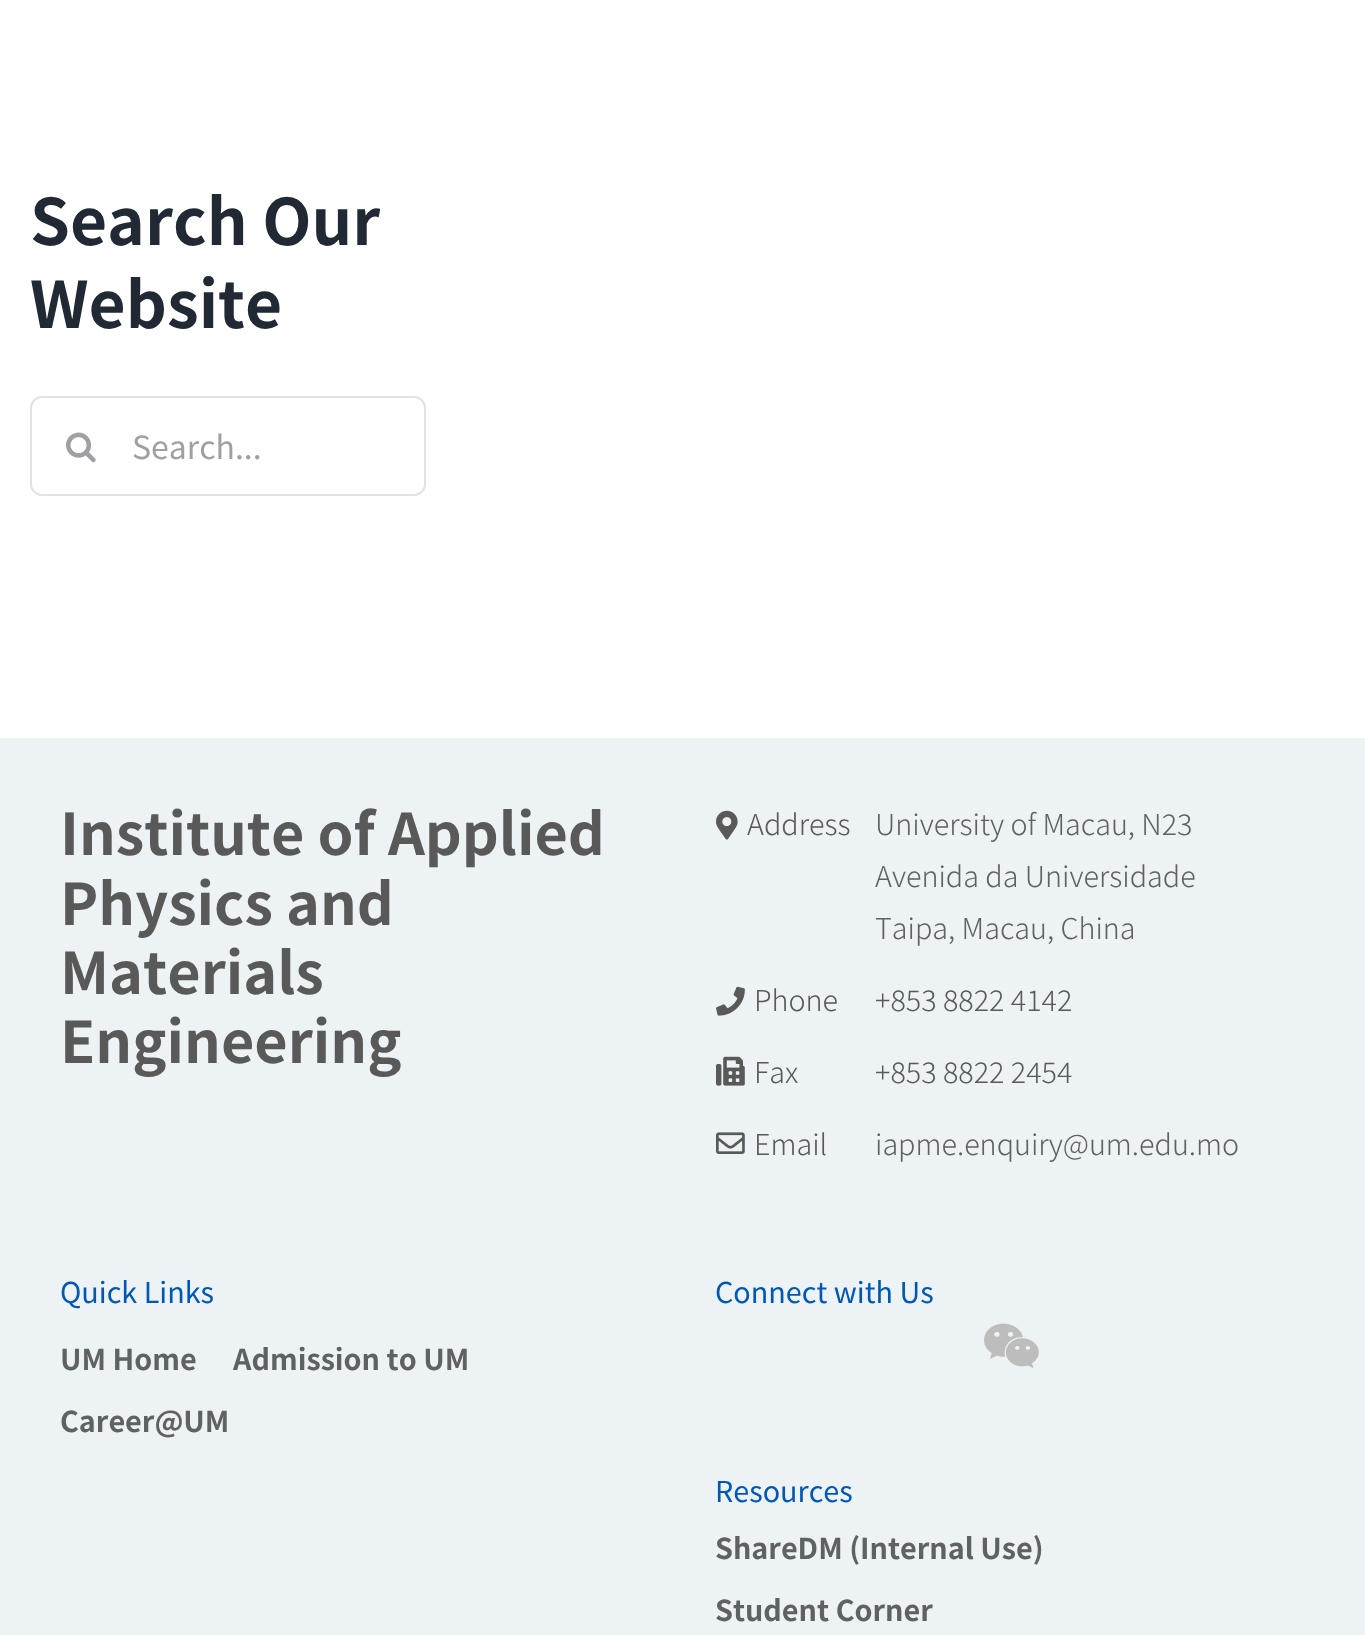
async function draw(canvas) {
	canvas.width = 1365;
	canvas.height = 1635;
	const c = canvas.getContext('2d');
	c.miterLimit = 4;
	c.fontKerning = 'none';
	async function loadImage(src) {
		const img = new Image();
		img.src = src;
		await img.decode();
		return img;
	}

	c.fillStyle = '#fff';
	c.fillRect(0, 0, 1365, 1635);
	c.font = 'bold 64px Noto Sans TC';
	c.fillStyle = '#212934';
	c.fillText('Search Our', 30, 245);
	c.fillText('Website', 30, 328);
	c.beginPath();
	c.roundRect(31, 397, 394, 98, 11);
	c.strokeStyle = '#e2e2e2';
	c.lineWidth = 2;
	c.stroke();
	c.drawImage(await loadImage('img1.png'), 66, 432, 30, 31);
	c.font = '32px Noto Sans TC';
	c.fillStyle = '#9ea0a4';
	c.fillText('Search...', 132, 459);
	c.fillStyle = '#edf2f4';
	c.fillRect(0, 738, 1365, 897);
	c.font = 'bold 57.5px Noto Sans TC';
	c.fillStyle = '#595959';
	for (const [text, x, y] of [
		['Institute of Applied', 60, 855],
		['Physics and', 60, 925],
		['Materials', 60, 994],
		['Engineering', 60, 1063],
	]) {
		c.fillText(text, x, y);
	}
	c.drawImage(await loadImage('img2.png'), 716, 810, 22, 30);
	c.font = '300 28.75px Noto Sans TC';
	c.fillText('Address', 747, 835);
	c.fillStyle = '#606162';
	for (const [text, x, y] of [
		['University of Macau, N23', 875, 835],
		['Avenida da Universidade', 875, 887],
		['Taipa, Macau, China', 875, 939],
	]) {
		c.fillText(text, x, y);
	}
	c.drawImage(await loadImage('img3.png'), 716, 986, 29, 30);
	c.fillStyle = '#595959';
	c.fillText('Phone', 754, 1011);
	c.fillText('+853 8822 4142', 875, 1011);
	c.drawImage(await loadImage('img4.png'), 716, 1056, 29, 30);
	c.fillText('Fax', 754, 1083);
	c.fillText('+853 8822 2454', 875, 1083);
	c.drawImage(await loadImage('img5.png'), 716, 1132, 29, 22);
	c.fillText('Email', 754, 1155);
	c.fillStyle = '#606162';
	c.fillText('iapme.enquiry@um.edu.mo', 875, 1155);
	c.font = '28.75px Noto Sans TC';
	c.fillStyle = '#0057b7';
	c.fillText('Quick Links', 60, 1303);
	c.font = 'bold 28.75px Noto Sans TC';
	c.fillStyle = '#606162';
	for (const [text, x, y] of [
		['UM Home', 60, 1370],
		['Admission to UM', 233, 1370],
		['Career@UM', 60, 1432],
	]) {
		c.fillText(text, x, y);
	}
	c.font = '28.75px Noto Sans TC';
	c.fillStyle = '#0057b7';
	c.fillText('Connect with Us', 715, 1303);
	c.drawImage(await loadImage('img6.png'), 984, 1323, 55, 46);
	c.fillText('Resources', 715, 1502);
	c.font = 'bold 28.75px Noto Sans TC';
	c.fillStyle = '#606162';
	c.fillText('ShareDM (Internal Use)', 715, 1559);
	c.fillText('Student Corner', 715, 1621);
}

draw(document.querySelector('canvas'));
